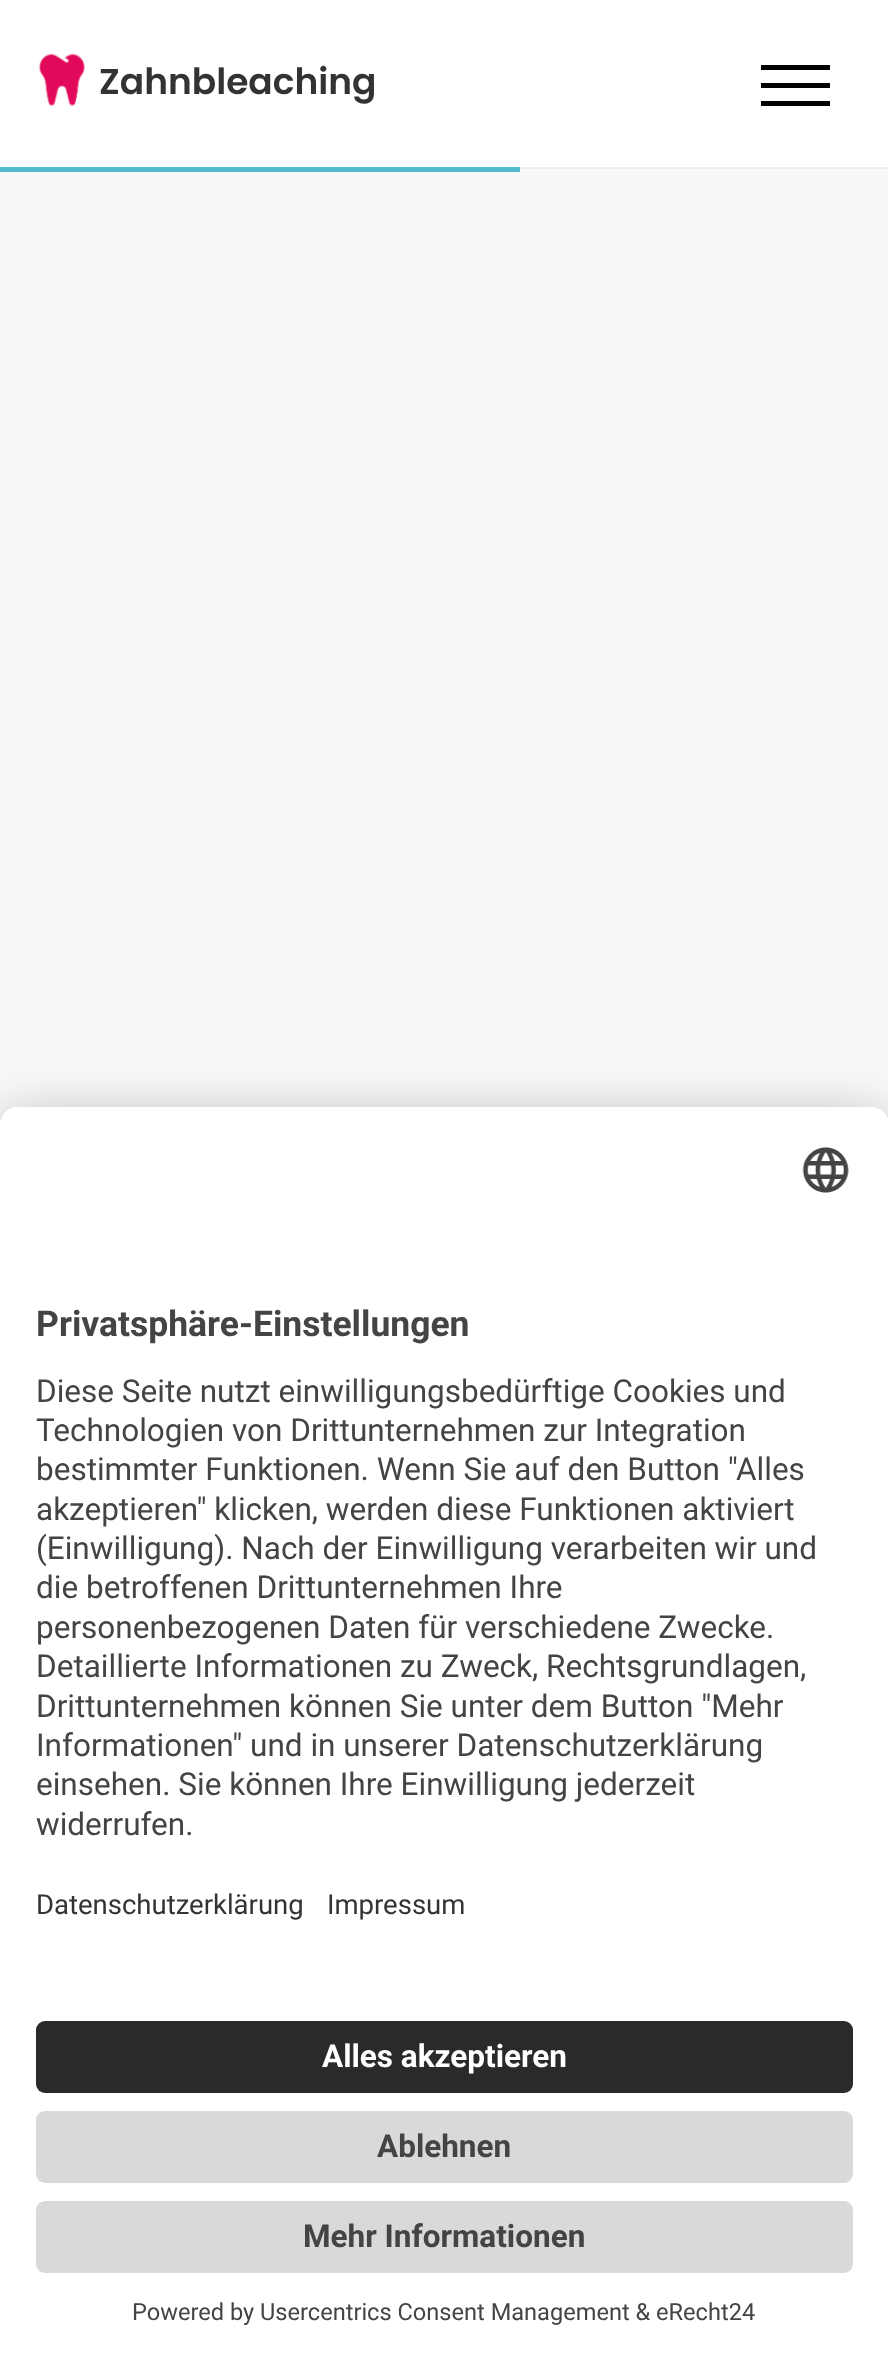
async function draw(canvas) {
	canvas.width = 888;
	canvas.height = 2362;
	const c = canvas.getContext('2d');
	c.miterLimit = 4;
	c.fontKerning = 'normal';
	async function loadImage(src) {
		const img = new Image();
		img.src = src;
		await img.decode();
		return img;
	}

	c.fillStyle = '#f8f8f8';
	c.fillRect(0, 0, 888, 2362);
	c.fillStyle = '#fff';
	c.fillRect(0, 0, 888, 167);
	c.fillStyle = '#eee';
	c.fillRect(520, 167, 368, 2);
	c.drawImage(await loadImage('img1.png'), 38, 53, 47, 53);
	c.font = '600 36px Poppins';
	c.fillStyle = '#333';
	c.fillText('Zahnbleaching', 99, 94);
	for (const [x, y, w, h, color] of [
		[761, 83, 69, 5, '#000'],
		[761, 65, 69, 5, '#000'],
		[761, 101, 69, 5, '#000'],
		[0, 167, 520, 5, '#52bbce'],
	]) {
		c.fillStyle = color;
		c.fillRect(x, y, w, h);
	}
	c.fillStyle = '#0000004d';
	c.filter = 'blur(31.5px)';
	c.beginPath();
	c.roundRect(0, 1152, 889, 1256, 18);
	c.fill();
	c.filter = 'none';
	c.fillStyle = '#00000038';
	c.filter = 'blur(29px)';
	c.beginPath();
	c.roundRect(0, 1118, 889, 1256, 18);
	c.fill();
	c.filter = 'none';
	c.fillStyle = '#fff';
	c.beginPath();
	c.moveTo(18, 1107);
	c.lineTo(871, 1107);
	c.bezierCurveTo(881, 1107, 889, 1115, 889, 1125);
	c.lineTo(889, 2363);
	c.lineTo(0, 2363);
	c.lineTo(0, 1125);
	c.bezierCurveTo(0, 1115, 8, 1107, 18, 1107);
	c.closePath();
	c.fill();
	c.beginPath();
	c.moveTo(18, 1107);
	c.lineTo(871, 1107);
	c.bezierCurveTo(881, 1107, 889, 1115, 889, 1125);
	c.lineTo(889, 1994);
	c.lineTo(0, 1994);
	c.lineTo(0, 1125);
	c.bezierCurveTo(0, 1115, 8, 1107, 18, 1107);
	c.closePath();
	c.fill();
	c.drawImage(await loadImage('img2.png'), 802, 1147, 47, 46);
	c.font = 'bold 35.5px Roboto';
	c.fillStyle = '#444';
	c.fillText('Privatsphäre-Einstellungen', 36, 1336);
	c.font = '31.5px Roboto';
	for (const [text, x, y] of [
		['Diese Seite nutzt einwilligungsbedürftige Cookies und', 36, 1402],
		['Technologien von Drittunternehmen zur Integration', 36, 1441],
		['bestimmter Funktionen. Wenn Sie auf den Button "Alles', 36, 1480],
		['akzeptieren" klicken, werden diese Funktionen aktiviert', 36, 1520],
		['(Einwilligung). Nach der Einwilligung verarbeiten wir und', 36, 1559],
		['die betroffenen Drittunternehmen Ihre', 36, 1598],
		['personenbezogenen Daten für verschiedene Zwecke.', 36, 1638],
		['Detaillierte Informationen zu Zweck, Rechtsgrundlagen,', 36, 1677],
		['Drittunternehmen können Sie unter dem Button "Mehr', 36, 1717],
		['Informationen" und in unserer Datenschutzerklärung', 36, 1756],
		['einsehen. Sie können Ihre Einwilligung jederzeit', 36, 1795],
		['widerrufen.', 36, 1835],
	]) {
		c.fillText(text, x, y);
	}
	c.font = '27.5px Roboto';
	c.fillStyle = '#333';
	c.fillText('Datenschutzerklärung', 36, 1914);
	c.fillText('Impressum', 327, 1914);
	c.fillStyle = '#292a2b';
	c.beginPath();
	c.roundRect(36, 2021, 817, 72, 9);
	c.fill();
	c.font = 'bold 31.5px Roboto';
	c.fillStyle = '#fff';
	c.fillText('Alles akzeptieren', 322, 2067);
	c.fillStyle = '#d9d9d9';
	c.beginPath();
	c.roundRect(36, 2111, 817, 72, 9);
	c.fill();
	c.fillStyle = '#444';
	c.fillText('Ablehnen', 377, 2157);
	c.fillStyle = '#d9d9d9';
	c.beginPath();
	c.roundRect(36, 2201, 817, 72, 9);
	c.fill();
	c.fillStyle = '#444';
	c.fillText('Mehr Informationen', 303, 2247);
	c.font = '23.6px Roboto';
	c.fillText('Powered by Usercentrics Consent Management & eRecht24', 132, 2320);
}

draw(document.querySelector('canvas'));
